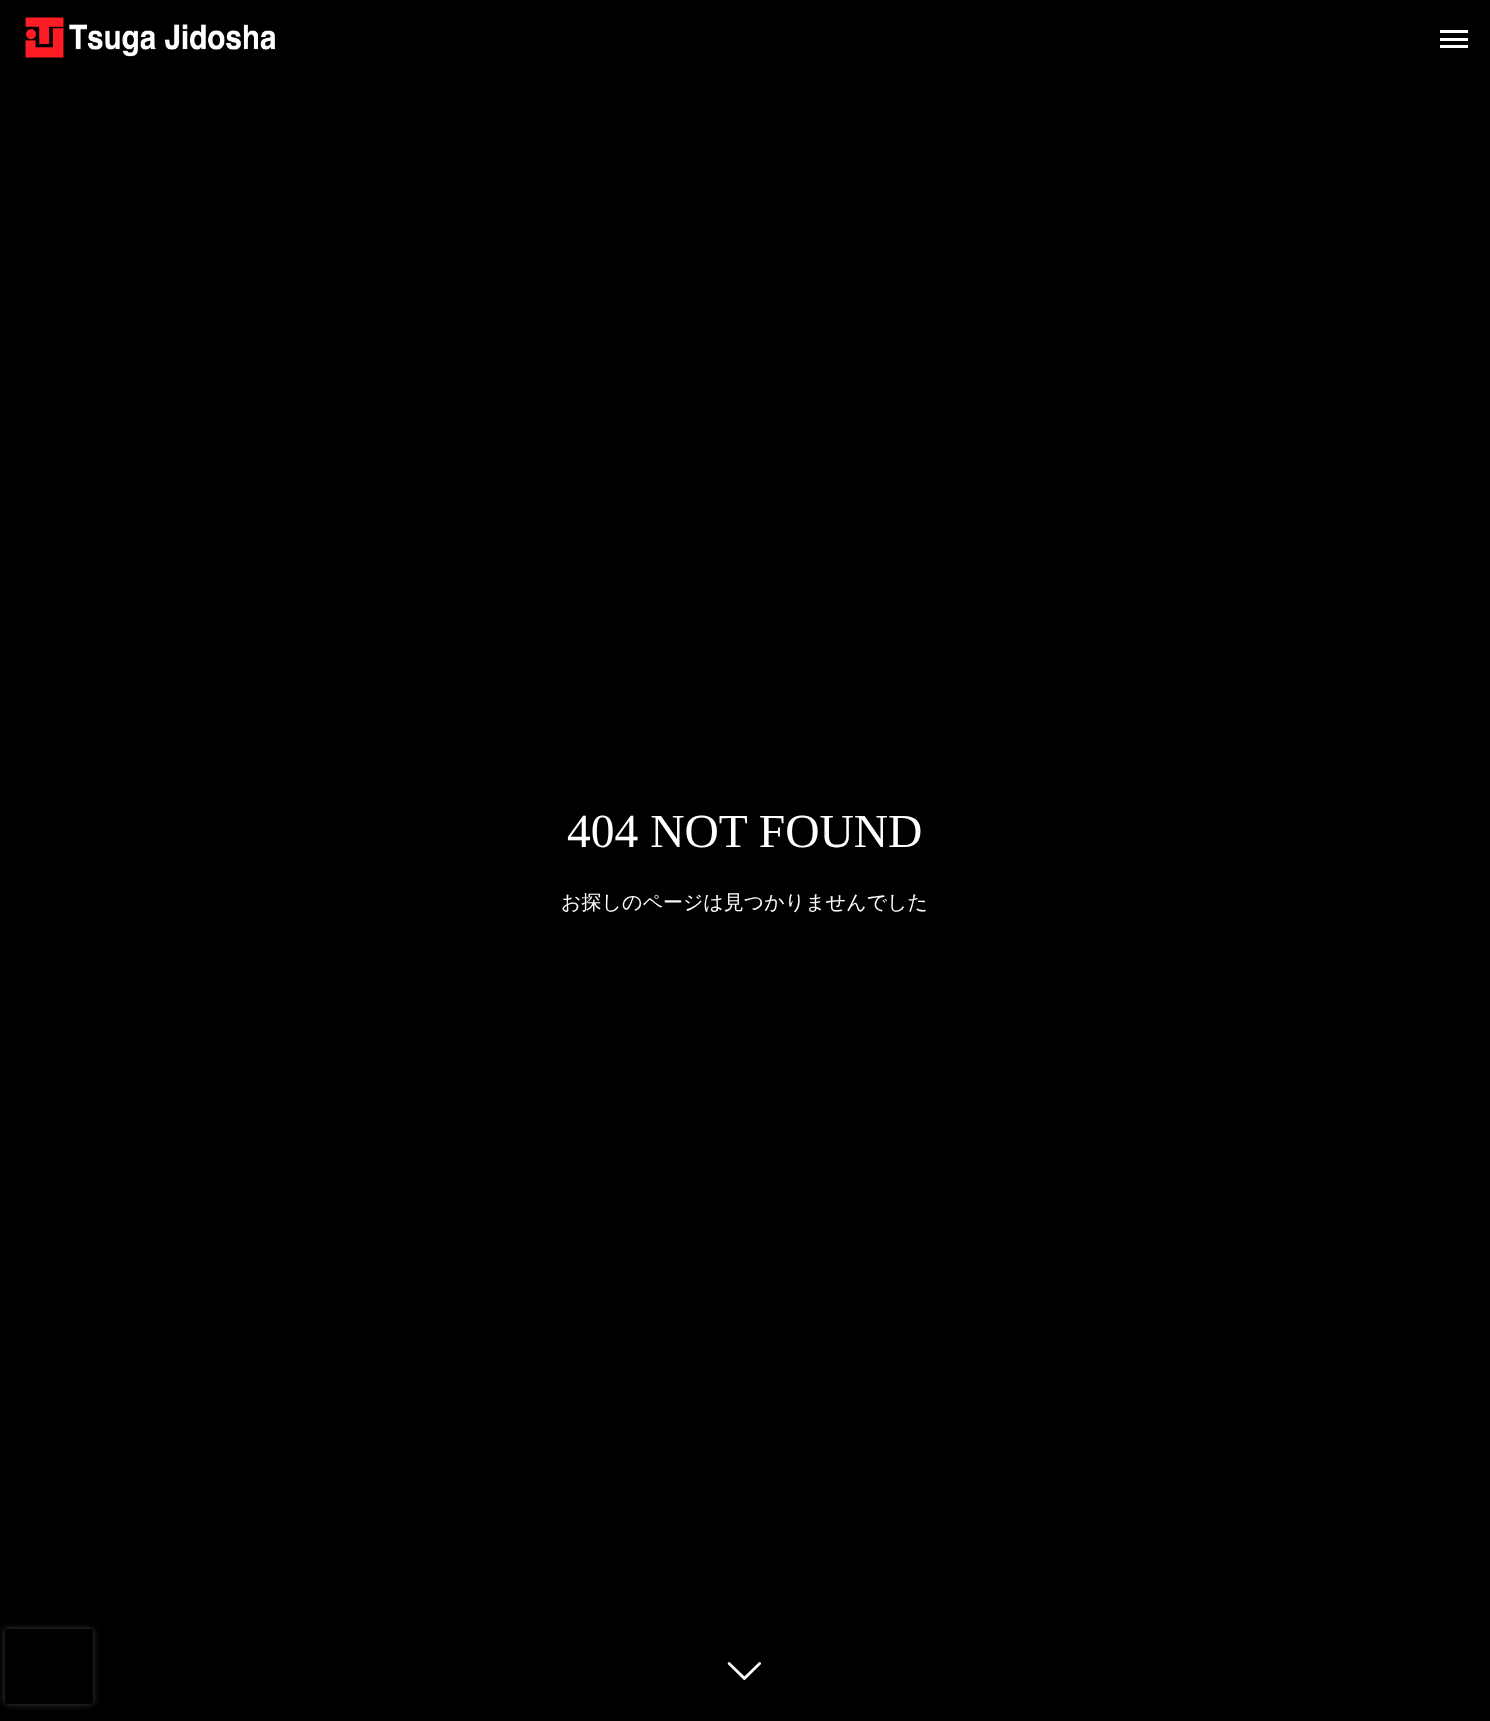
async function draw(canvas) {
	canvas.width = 1490;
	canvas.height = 1721;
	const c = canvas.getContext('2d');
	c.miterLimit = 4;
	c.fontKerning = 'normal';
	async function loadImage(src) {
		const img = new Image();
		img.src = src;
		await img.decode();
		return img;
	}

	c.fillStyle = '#000';
	c.fillRect(0, 0, 1490, 1721);
	c.drawImage(await loadImage('img1.png'), 25, 17, 250, 41);
	for (const [x, y, w, h, color] of [
		[1440, 30, 28, 3, '#fff'],
		[1440, 38, 28, 3, '#fff'],
		[1440, 45, 28, 3, '#fff'],
	]) {
		c.fillStyle = color;
		c.fillRect(x, y, w, h);
	}
	c.font = '47.5px Liberation Serif';
	c.fillText('404 NOT FOUND', 567, 847);
	c.font = '500 20px WenQuanYi Zen Hei';
	c.fillText('お探しのページは見つかりませんでした', 561, 909);
	c.drawImage(await loadImage('img2.png'), 727, 1662, 34, 18);
	c.save();
	c.beginPath();
	c.moveTo(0, 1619);
	c.lineTo(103, 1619);
	c.lineTo(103, 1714);
	c.lineTo(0, 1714);
	c.closePath();
	c.moveTo(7.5, 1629);
	c.lineTo(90.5, 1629);
	c.bezierCurveTo(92, 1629, 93, 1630, 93, 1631.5);
	c.lineTo(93, 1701.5);
	c.bezierCurveTo(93, 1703, 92, 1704, 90.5, 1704);
	c.lineTo(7.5, 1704);
	c.bezierCurveTo(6, 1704, 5, 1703, 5, 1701.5);
	c.lineTo(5, 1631.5);
	c.bezierCurveTo(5, 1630, 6, 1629, 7.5, 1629);
	c.closePath();
	c.clip('evenodd');
	c.fillStyle = '#404040';
	c.filter = 'blur(3px)';
	c.beginPath();
	c.roundRect(5, 1629, 88, 75, 2.5);
	c.fill();
	c.filter = 'none';
	c.restore();
}

draw(document.querySelector('canvas'));
